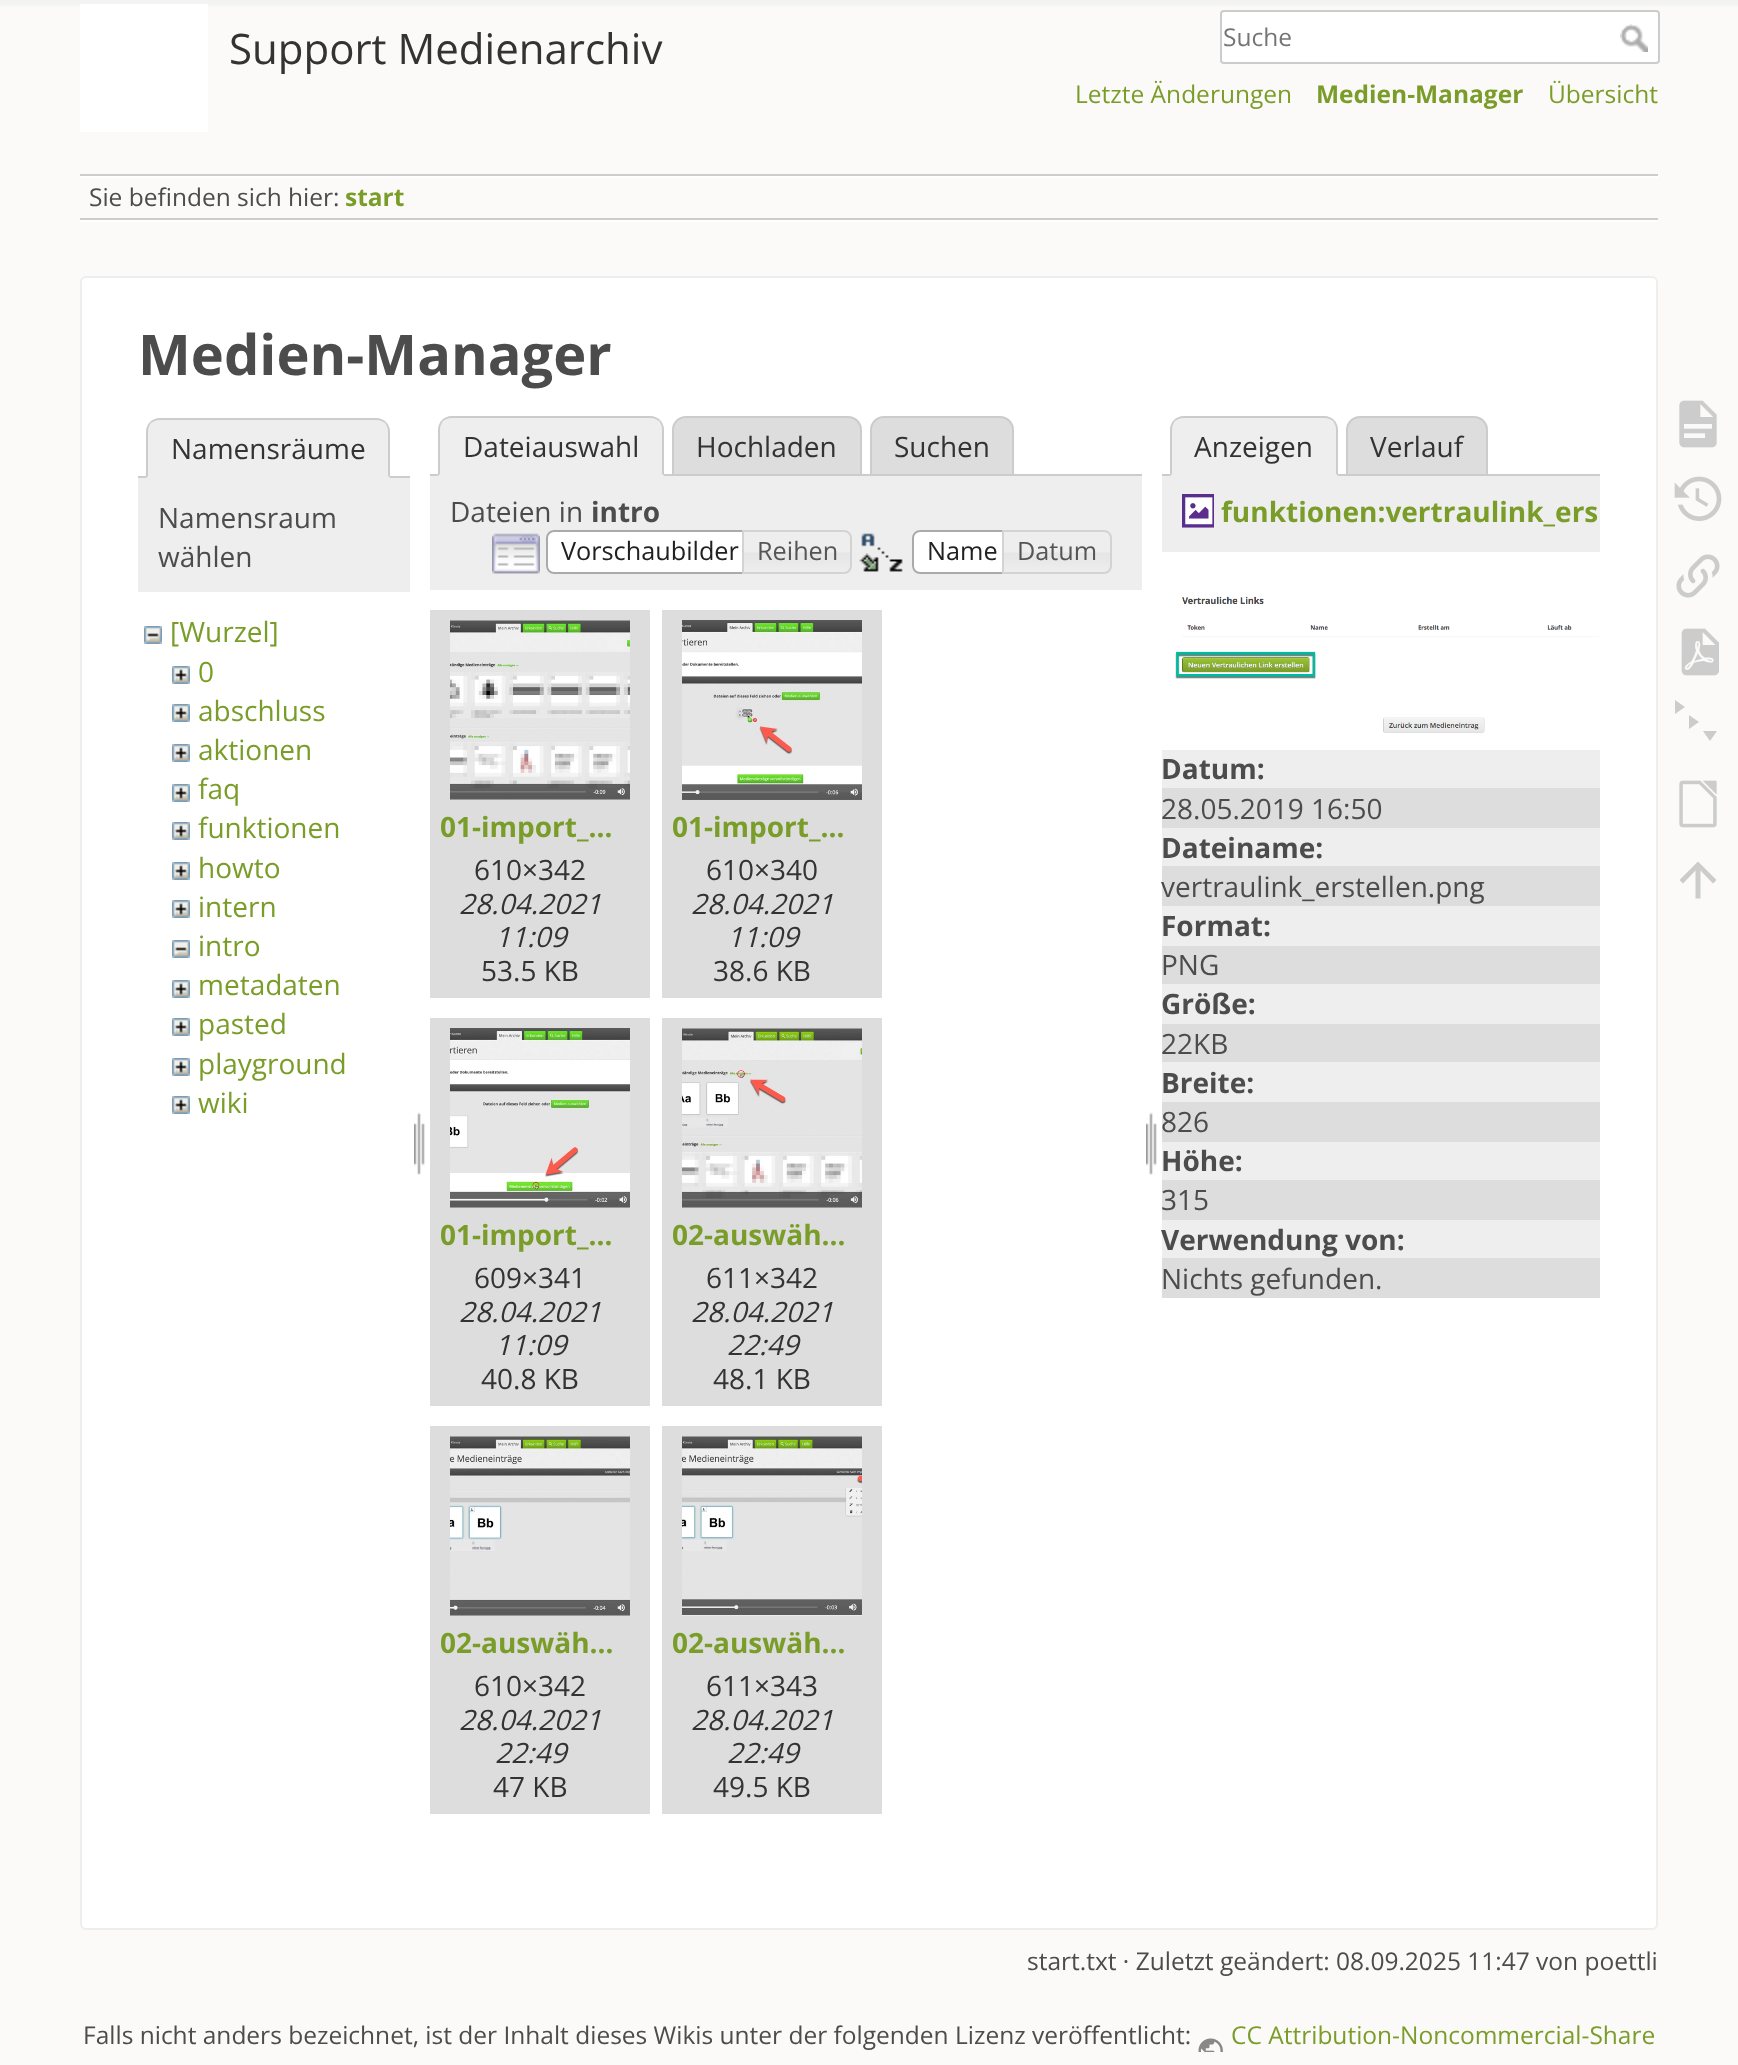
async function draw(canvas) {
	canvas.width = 1738;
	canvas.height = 2065;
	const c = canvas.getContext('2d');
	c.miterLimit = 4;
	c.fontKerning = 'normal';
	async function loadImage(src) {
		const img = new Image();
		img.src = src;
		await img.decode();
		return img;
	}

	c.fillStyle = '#fbfaf9';
	c.fillRect(0, 0, 1738, 2065);
	c.drawImage(await loadImage('img1.png'), 0, 0, 1738, 6);
	c.fillStyle = '#fff';
	c.fillRect(80, 4, 128, 128);
	c.font = '42px Open Sans';
	c.fillStyle = '#333';
	c.fillText('Support Medienarchiv', 229, 64);
	c.fillStyle = '#fff';
	c.beginPath();
	c.roundRect(1221, 11, 438, 52, 3);
	c.fill();
	c.strokeStyle = '#ccc';
	c.lineWidth = 2;
	c.stroke();
	c.font = '24.5px Open Sans';
	c.fillStyle = '#757575';
	c.fillText('Suche', 1223, 46);
	c.drawImage(await loadImage('img2.png'), 1620, 24, 28, 28);
	c.fillStyle = '#7a9d29';
	c.fillText('Letzte Änderungen', 1075, 103);
	c.font = 'bold 24.5px Open Sans';
	c.fillText('Medien-Manager', 1316, 103);
	c.font = '24.5px Open Sans';
	c.fillText('Übersicht', 1548, 103);
	for (const [x, y, w, h, color] of [
		[80, 174, 1578, 2, '#ccc'],
		[80, 220, 1578, 2, '#fff'],
		[80, 176, 1578, 2, '#fff'],
		[80, 218, 1578, 2, '#ccc'],
	]) {
		c.fillStyle = color;
		c.fillRect(x, y, w, h);
	}
	c.fillStyle = '#4c4c4c';
	c.fillText('Sie befinden sich hier:', 89, 206);
	c.font = 'bold 24.5px Open Sans';
	c.fillStyle = '#7a9d29';
	c.fillText('start', 345, 206);
	c.fillStyle = '#fff';
	c.beginPath();
	c.roundRect(81, 277, 1576, 1652, 5);
	c.fill();
	c.strokeStyle = '#eee';
	c.stroke();
	c.font = 'bold 56px Open Sans';
	c.fillStyle = '#4c4c4c';
	c.fillText('Medien-Manager', 138, 375);
	c.fillStyle = '#ccc';
	c.fillRect(138, 476, 272, 2);
	c.fillStyle = '#eee';
	c.beginPath();
	c.roundRect(146, 418, 244, 60, [14, 14, 0, 0]);
	c.fill();
	c.fillStyle = '#ccc';
	c.beginPath();
	c.moveTo(160, 418);
	c.bezierCurveTo(156, 418, 152, 420, 150, 422);
	c.lineTo(151, 423);
	c.bezierCurveTo(154, 421, 156, 420, 160, 420);
	c.lineTo(376, 420);
	c.bezierCurveTo(380, 420, 382, 421, 385, 423);
	c.lineTo(386, 422);
	c.bezierCurveTo(384, 420, 380, 418, 376, 418);
	c.closePath();
	c.fill();
	c.beginPath();
	c.moveTo(390, 478);
	c.lineTo(390, 432);
	c.bezierCurveTo(390, 428, 388, 424, 386, 422);
	c.lineTo(385, 423);
	c.bezierCurveTo(387, 426, 388, 428, 388, 432);
	c.lineTo(388, 476);
	c.closePath();
	c.fill();
	c.fillStyle = '#eee';
	c.beginPath();
	c.moveTo(390, 478);
	c.lineTo(388, 476);
	c.lineTo(148, 476);
	c.lineTo(146, 478);
	c.closePath();
	c.fill();
	c.fillStyle = '#ccc';
	c.beginPath();
	c.moveTo(146, 478);
	c.lineTo(148, 476);
	c.lineTo(148, 432);
	c.bezierCurveTo(148, 428, 149, 426, 151, 423);
	c.lineTo(150, 422);
	c.bezierCurveTo(148, 424, 146, 428, 146, 432);
	c.closePath();
	c.fill();
	c.font = '28px Open Sans';
	c.fillStyle = '#333';
	c.fillText('Namensräume', 171, 459);
	c.fillStyle = '#eee';
	c.fillRect(138, 478, 272, 114);
	c.fillStyle = '#4c4c4c';
	c.fillText('Namensraum', 158, 528);
	c.fillText('wählen', 158, 567);
	c.drawImage(await loadImage('img3.png'), 144, 626, 18, 18);
	c.fillStyle = '#7a9d29';
	c.fillText('[Wurzel]', 170, 642);
	c.drawImage(await loadImage('img4.png'), 172, 666, 18, 18);
	c.fillText('0', 198, 682);
	c.drawImage(await loadImage('img4.png'), 172, 704, 18, 18);
	c.fillText('abschluss', 198, 721);
	c.drawImage(await loadImage('img4.png'), 172, 744, 18, 18);
	c.fillText('aktionen', 198, 760);
	c.drawImage(await loadImage('img4.png'), 172, 784, 18, 18);
	c.fillText('faq', 198, 799);
	c.drawImage(await loadImage('img4.png'), 172, 822, 18, 18);
	c.fillText('funktionen', 198, 838);
	c.drawImage(await loadImage('img4.png'), 172, 862, 18, 18);
	c.fillText('howto', 198, 878);
	c.drawImage(await loadImage('img4.png'), 172, 900, 18, 18);
	c.fillText('intern', 198, 917);
	c.drawImage(await loadImage('img3.png'), 172, 940, 18, 18);
	c.fillText('intro', 198, 956);
	c.drawImage(await loadImage('img4.png'), 172, 980, 18, 18);
	c.fillText('metadaten', 198, 995);
	c.drawImage(await loadImage('img4.png'), 172, 1018, 18, 18);
	c.fillText('pasted', 198, 1034);
	c.drawImage(await loadImage('img4.png'), 172, 1058, 18, 18);
	c.fillText('playground', 198, 1074);
	c.drawImage(await loadImage('img4.png'), 172, 1096, 18, 18);
	c.fillText('wiki', 198, 1113);
	c.drawImage(await loadImage('img5.png'), 414, 1112, 11, 63);
	c.fillStyle = '#ddd';
	c.beginPath();
	c.roundRect(673, 417, 188, 58, [13, 13, 0, 0]);
	c.fill();
	c.strokeStyle = '#ccc';
	c.stroke();
	c.beginPath();
	c.roundRect(871, 417, 142, 58, [13, 13, 0, 0]);
	c.fill();
	c.stroke();
	c.fillStyle = '#ccc';
	c.fillRect(430, 474, 712, 2);
	c.fillStyle = '#eee';
	c.beginPath();
	c.roundRect(438, 416, 226, 60, [14, 14, 0, 0]);
	c.fill();
	c.fillStyle = '#ccc';
	c.beginPath();
	c.moveTo(452, 416);
	c.bezierCurveTo(448, 416, 444, 418, 442, 420);
	c.lineTo(443, 421);
	c.bezierCurveTo(446, 419, 448, 418, 452, 418);
	c.lineTo(650, 418);
	c.bezierCurveTo(654, 418, 656, 419, 659, 421);
	c.lineTo(660, 420);
	c.bezierCurveTo(658, 418, 654, 416, 650, 416);
	c.closePath();
	c.fill();
	c.beginPath();
	c.moveTo(664, 476);
	c.lineTo(664, 430);
	c.bezierCurveTo(664, 426, 662, 422, 660, 420);
	c.lineTo(659, 421);
	c.bezierCurveTo(661, 424, 662, 426, 662, 430);
	c.lineTo(662, 474);
	c.closePath();
	c.fill();
	c.fillStyle = '#eee';
	c.beginPath();
	c.moveTo(664, 476);
	c.lineTo(662, 474);
	c.lineTo(440, 474);
	c.lineTo(438, 476);
	c.closePath();
	c.fill();
	c.fillStyle = '#ccc';
	c.beginPath();
	c.moveTo(438, 476);
	c.lineTo(440, 474);
	c.lineTo(440, 430);
	c.bezierCurveTo(440, 426, 441, 424, 443, 421);
	c.lineTo(442, 420);
	c.bezierCurveTo(440, 422, 438, 426, 438, 430);
	c.closePath();
	c.fill();
	c.fillStyle = '#333';
	for (const [text, x, y] of [
		['Dateiauswahl', 463, 457],
		['Hochladen', 696, 457],
		['Suchen', 894, 457],
	]) {
		c.fillText(text, x, y);
	}
	c.fillStyle = '#eee';
	c.fillRect(430, 476, 712, 114);
	c.fillStyle = '#4c4c4c';
	c.fillText('Dateien in', 450, 522);
	c.font = 'bold 28px Open Sans';
	c.fillText('intro', 591, 522);
	c.drawImage(await loadImage('img6.png'), 492, 533, 48, 41);
	c.fillStyle = '#fff';
	c.beginPath();
	c.roundRect(546, 530, 206, 44, [8, 0, 0, 8]);
	c.fill();
	c.drawImage(await loadImage('img7.png'), 546, 530, 6, 44);
	c.beginPath();
	c.roundRect(547, 531, 204, 42, [7, 0, 0, 7]);
	c.strokeStyle = '#aaa';
	c.stroke();
	c.font = '25.25px Open Sans';
	c.fillStyle = '#212121';
	c.fillText('Vorschaubilder', 561, 560);
	c.drawImage(await loadImage('img8.png'), 744, 530, 108, 44);
	c.beginPath();
	c.roundRect(743, 531, 108, 42, [0, 7, 7, 0]);
	c.strokeStyle = '#d3d3d3';
	c.stroke();
	c.fillStyle = '#555';
	c.fillText('Reihen', 757, 560);
	c.drawImage(await loadImage('img9.png'), 859, 533, 44, 39);
	c.fillStyle = '#fff';
	c.beginPath();
	c.roundRect(912, 530, 100, 44, [8, 0, 0, 8]);
	c.fill();
	c.drawImage(await loadImage('img7.png'), 912, 530, 6, 44);
	c.beginPath();
	c.roundRect(913, 531, 98, 42, [7, 0, 0, 7]);
	c.strokeStyle = '#aaa';
	c.stroke();
	c.fillStyle = '#212121';
	c.fillText('Name', 927, 560);
	c.drawImage(await loadImage('img8.png'), 1004, 530, 108, 44);
	c.beginPath();
	c.roundRect(1003, 531, 108, 42, [0, 7, 7, 0]);
	c.strokeStyle = '#d3d3d3';
	c.stroke();
	c.fillStyle = '#555';
	c.fillText('Datum', 1017, 560);
	c.fillStyle = '#ddd';
	c.fillRect(430, 610, 220, 388);
	c.drawImage(await loadImage('img10.png'), 450, 620, 180, 180);
	c.font = 'bold 28px Open Sans';
	c.fillStyle = '#7a9d29';
	c.fillText('01-import_…', 440, 837);
	c.font = '28px Open Sans';
	c.fillStyle = '#333';
	c.fillText('610×342', 474, 880);
	c.font = 'italic 28px Open Sans';
	c.fillText('28.04.2021', 459, 914);
	c.fillText('11:09', 495, 947);
	c.font = '28px Open Sans';
	c.fillText('53.5 KB', 481, 981);
	c.fillStyle = '#ddd';
	c.fillRect(662, 610, 220, 388);
	c.drawImage(await loadImage('img11.png'), 682, 620, 180, 180);
	c.font = 'bold 28px Open Sans';
	c.fillStyle = '#7a9d29';
	c.fillText('01-import_…', 672, 837);
	c.font = '28px Open Sans';
	c.fillStyle = '#333';
	c.fillText('610×340', 706, 880);
	c.font = 'italic 28px Open Sans';
	c.fillText('28.04.2021', 691, 914);
	c.fillText('11:09', 727, 947);
	c.font = '28px Open Sans';
	c.fillText('38.6 KB', 713, 981);
	c.fillStyle = '#ddd';
	c.fillRect(430, 1018, 220, 388);
	c.drawImage(await loadImage('img12.png'), 450, 1028, 180, 180);
	c.font = 'bold 28px Open Sans';
	c.fillStyle = '#7a9d29';
	c.fillText('01-import_…', 440, 1245);
	c.font = '28px Open Sans';
	c.fillStyle = '#333';
	c.fillText('609×341', 474, 1288);
	c.font = 'italic 28px Open Sans';
	c.fillText('28.04.2021', 459, 1322);
	c.fillText('11:09', 495, 1355);
	c.font = '28px Open Sans';
	c.fillText('40.8 KB', 481, 1389);
	c.fillStyle = '#ddd';
	c.fillRect(662, 1018, 220, 388);
	c.drawImage(await loadImage('img13.png'), 682, 1028, 180, 180);
	c.font = 'bold 28px Open Sans';
	c.fillStyle = '#7a9d29';
	c.fillText('02-auswäh…', 672, 1245);
	c.font = '28px Open Sans';
	c.fillStyle = '#333';
	c.fillText('611×342', 706, 1288);
	c.font = 'italic 28px Open Sans';
	c.fillText('28.04.2021', 691, 1322);
	c.fillText('22:49', 727, 1355);
	c.font = '28px Open Sans';
	c.fillText('48.1 KB', 713, 1389);
	c.fillStyle = '#ddd';
	c.fillRect(430, 1426, 220, 388);
	c.drawImage(await loadImage('img14.png'), 450, 1436, 180, 180);
	c.font = 'bold 28px Open Sans';
	c.fillStyle = '#7a9d29';
	c.fillText('02-auswäh…', 440, 1653);
	c.font = '28px Open Sans';
	c.fillStyle = '#333';
	c.fillText('610×342', 474, 1696);
	c.font = 'italic 28px Open Sans';
	c.fillText('28.04.2021', 459, 1730);
	c.fillText('22:49', 495, 1763);
	c.font = '28px Open Sans';
	c.fillText('47 KB', 493, 1797);
	c.fillStyle = '#ddd';
	c.fillRect(662, 1426, 220, 388);
	c.drawImage(await loadImage('img15.png'), 682, 1436, 180, 180);
	c.font = 'bold 28px Open Sans';
	c.fillStyle = '#7a9d29';
	c.fillText('02-auswäh…', 672, 1653);
	c.font = '28px Open Sans';
	c.fillStyle = '#333';
	c.fillText('611×343', 706, 1696);
	c.font = 'italic 28px Open Sans';
	c.fillText('28.04.2021', 691, 1730);
	c.fillText('22:49', 727, 1763);
	c.font = '28px Open Sans';
	c.fillText('49.5 KB', 713, 1797);
	c.drawImage(await loadImage('img5.png'), 1146, 1112, 11, 63);
	c.fillStyle = '#ddd';
	c.beginPath();
	c.roundRect(1347, 417, 140, 58, [13, 13, 0, 0]);
	c.fill();
	c.strokeStyle = '#ccc';
	c.stroke();
	c.fillStyle = '#ccc';
	c.fillRect(1162, 474, 438, 2);
	c.fillStyle = '#eee';
	c.beginPath();
	c.roundRect(1170, 416, 168, 60, [14, 14, 0, 0]);
	c.fill();
	c.fillStyle = '#ccc';
	c.beginPath();
	c.moveTo(1184, 416);
	c.bezierCurveTo(1180, 416, 1176, 418, 1174, 420);
	c.lineTo(1175, 421);
	c.bezierCurveTo(1178, 419, 1180, 418, 1184, 418);
	c.lineTo(1324, 418);
	c.bezierCurveTo(1328, 418, 1330, 419, 1333, 421);
	c.lineTo(1334, 420);
	c.bezierCurveTo(1332, 418, 1328, 416, 1324, 416);
	c.closePath();
	c.fill();
	c.beginPath();
	c.moveTo(1338, 476);
	c.lineTo(1338, 430);
	c.bezierCurveTo(1338, 426, 1336, 422, 1334, 420);
	c.lineTo(1333, 421);
	c.bezierCurveTo(1335, 424, 1336, 426, 1336, 430);
	c.lineTo(1336, 474);
	c.closePath();
	c.fill();
	c.fillStyle = '#eee';
	c.beginPath();
	c.moveTo(1338, 476);
	c.lineTo(1336, 474);
	c.lineTo(1172, 474);
	c.lineTo(1170, 476);
	c.closePath();
	c.fill();
	c.fillStyle = '#ccc';
	c.beginPath();
	c.moveTo(1170, 476);
	c.lineTo(1172, 474);
	c.lineTo(1172, 430);
	c.bezierCurveTo(1172, 426, 1173, 424, 1175, 421);
	c.lineTo(1174, 420);
	c.bezierCurveTo(1172, 422, 1170, 426, 1170, 430);
	c.closePath();
	c.fill();
	c.fillStyle = '#333';
	c.fillText('Anzeigen', 1194, 457);
	c.fillText('Verlauf', 1370, 457);
	c.fillStyle = '#eee';
	c.fillRect(1162, 476, 438, 76);
	c.drawImage(await loadImage('img16.png'), 1182, 494, 32, 34);
	c.font = 'bold 28px Open Sans';
	c.fillStyle = '#7a9d29';
	c.fillText('funktionen:vertraulink_ers', 1221, 522);
	c.drawImage(await loadImage('img17.png'), 1175, 596, 424, 137);
	c.fillStyle = '#eee';
	c.fillRect(1162, 750, 438, 38);
	c.fillStyle = '#4c4c4c';
	c.fillText('Datum:', 1161, 779);
	c.fillStyle = '#ddd';
	c.fillRect(1162, 788, 438, 40);
	c.font = '28px Open Sans';
	c.fillStyle = '#4c4c4c';
	c.fillText('28.05.2019 16:50', 1161, 819);
	c.fillStyle = '#eee';
	c.fillRect(1162, 828, 438, 38);
	c.font = 'bold 28px Open Sans';
	c.fillStyle = '#4c4c4c';
	c.fillText('Dateiname:', 1161, 858);
	c.fillStyle = '#ddd';
	c.fillRect(1162, 866, 438, 40);
	c.font = '28px Open Sans';
	c.fillStyle = '#4c4c4c';
	c.fillText('vertraulink_erstellen.png', 1161, 897);
	c.fillStyle = '#eee';
	c.fillRect(1162, 906, 438, 40);
	c.font = 'bold 28px Open Sans';
	c.fillStyle = '#4c4c4c';
	c.fillText('Format:', 1161, 936);
	c.fillStyle = '#ddd';
	c.fillRect(1162, 946, 438, 38);
	c.font = '28px Open Sans';
	c.fillStyle = '#4c4c4c';
	c.fillText('PNG', 1161, 975);
	c.fillStyle = '#eee';
	c.fillRect(1162, 984, 438, 40);
	c.font = 'bold 28px Open Sans';
	c.fillStyle = '#4c4c4c';
	c.fillText('Größe:', 1161, 1014);
	c.fillStyle = '#ddd';
	c.fillRect(1162, 1024, 438, 38);
	c.font = '28px Open Sans';
	c.fillStyle = '#4c4c4c';
	c.fillText('22KB', 1161, 1054);
	c.fillStyle = '#eee';
	c.fillRect(1162, 1062, 438, 40);
	c.font = 'bold 28px Open Sans';
	c.fillStyle = '#4c4c4c';
	c.fillText('Breite:', 1161, 1093);
	c.fillStyle = '#ddd';
	c.fillRect(1162, 1102, 438, 40);
	c.font = '28px Open Sans';
	c.fillStyle = '#4c4c4c';
	c.fillText('826', 1161, 1132);
	c.fillStyle = '#eee';
	c.fillRect(1162, 1142, 438, 38);
	c.font = 'bold 28px Open Sans';
	c.fillStyle = '#4c4c4c';
	c.fillText('Höhe:', 1161, 1171);
	c.fillStyle = '#ddd';
	c.fillRect(1162, 1180, 438, 40);
	c.font = '28px Open Sans';
	c.fillStyle = '#4c4c4c';
	c.fillText('315', 1161, 1210);
	c.fillStyle = '#eee';
	c.fillRect(1162, 1220, 438, 38);
	c.font = 'bold 28px Open Sans';
	c.fillStyle = '#4c4c4c';
	c.fillText('Verwendung von:', 1161, 1250);
	c.fillStyle = '#ddd';
	c.fillRect(1162, 1258, 438, 40);
	c.font = '28px Open Sans';
	c.fillStyle = '#4c4c4c';
	c.fillText('Nichts gefunden.', 1161, 1289);
	c.font = '24.5px Open Sans';
	c.fillText('start.txt · Zuletzt geändert: 08.09.2025 11:47 von poettli', 1027, 1970);
	c.drawImage(await loadImage('img18.png'), 1679, 400, 38, 48);
	c.drawImage(await loadImage('img19.png'), 1674, 476, 48, 45);
	c.drawImage(await loadImage('img20.png'), 1676, 554, 44, 44);
	c.drawImage(await loadImage('img21.png'), 1681, 628, 38, 48);
	c.fillStyle = '#ccc';
	c.beginPath();
	c.moveTo(1675, 700);
	c.lineTo(1685, 707);
	c.lineTo(1675, 714);
	c.closePath();
	c.moveTo(1689, 715);
	c.lineTo(1699, 722);
	c.lineTo(1689, 729);
	c.closePath();
	c.moveTo(1703, 731);
	c.lineTo(1717, 731);
	c.lineTo(1710, 741);
	c.closePath();
	c.fill();
	c.drawImage(await loadImage('img22.png'), 1679, 780, 38, 48);
	c.beginPath();
	c.moveTo(1700.5, 898.5);
	c.lineTo(1695.5, 898.5);
	c.lineTo(1695.5, 870.5);
	c.lineTo(1683, 883.5);
	c.lineTo(1679.5, 880);
	c.lineTo(1698, 861.5);
	c.lineTo(1716.5, 880);
	c.lineTo(1713, 883.5);
	c.lineTo(1700.5, 870.5);
	c.closePath();
	c.fill();
	c.fillStyle = '#4c4c4c';
	c.fillText('Falls nicht anders bezeichnet, ist der Inhalt dieses Wikis unter der folgenden Lizenz veröffentlicht:', 83, 2044);
	c.drawImage(await loadImage('img23.png'), 1198, 2038, 25, 14);
	c.fillStyle = '#7a9d29';
	c.fillText('CC Attribution-Noncommercial-Share', 1231, 2044);
}

draw(document.querySelector('canvas'));
